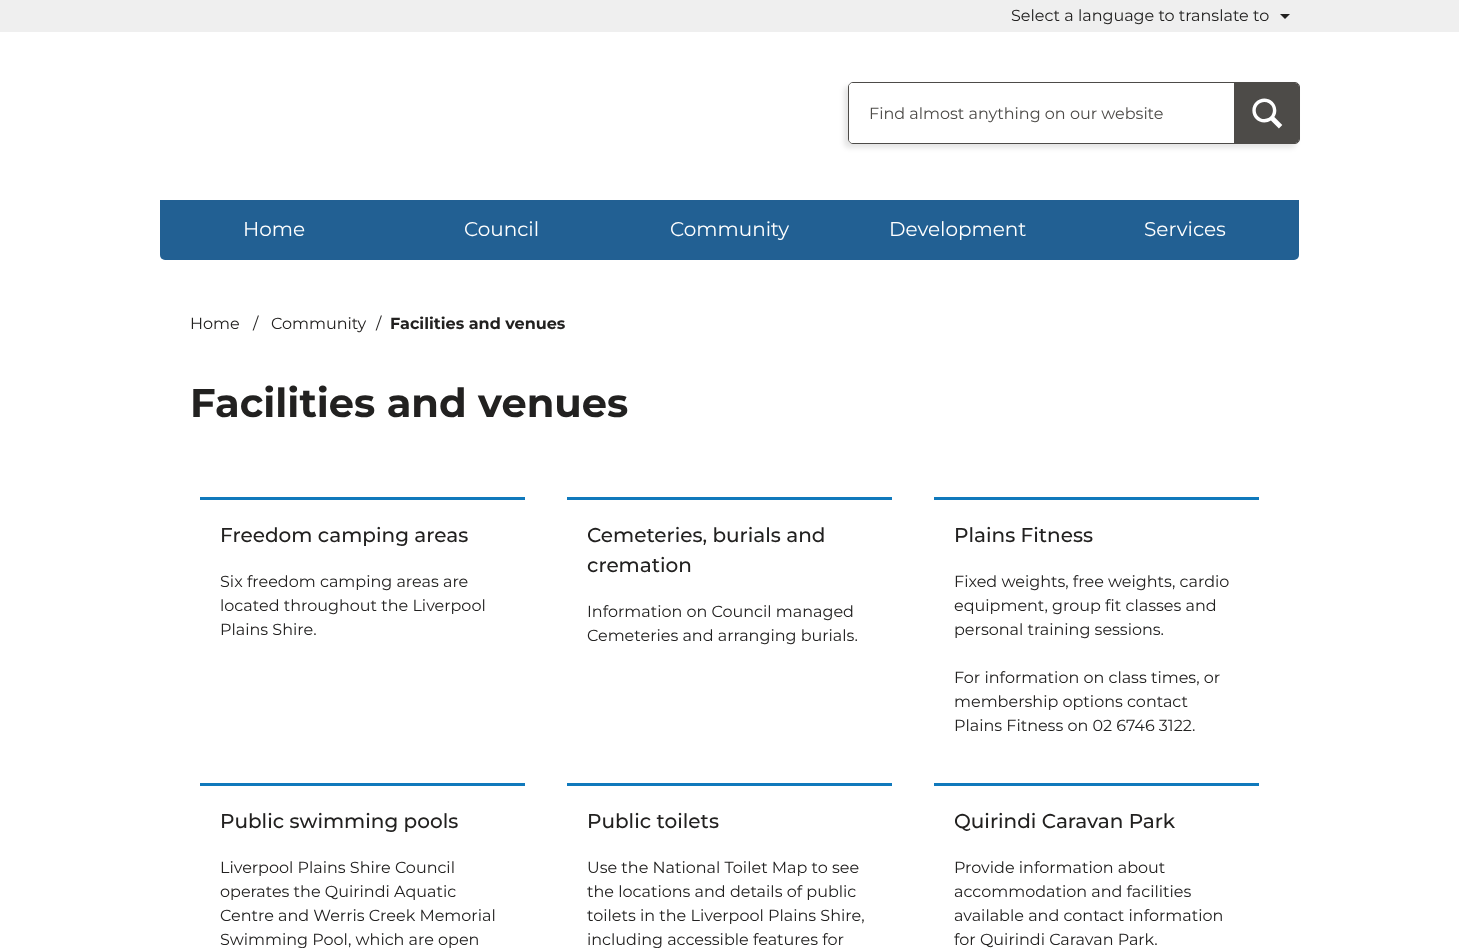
async function draw(canvas) {
	canvas.width = 1459;
	canvas.height = 948;
	const c = canvas.getContext('2d');
	c.miterLimit = 4;
	c.fontKerning = 'normal';
	async function loadImage(src) {
		const img = new Image();
		img.src = src;
		await img.decode();
		return img;
	}

	c.fillStyle = '#fff';
	c.fillRect(0, 0, 1459, 948);
	c.fillStyle = '#efefef';
	c.fillRect(0, 0, 1459, 32);
	c.font = '16px Montserrat';
	c.fillStyle = '#222120';
	c.fillText('Select a language to translate to', 1011, 21);
	c.beginPath();
	c.moveTo(1280, 14);
	c.lineTo(1290, 14);
	c.lineTo(1285, 19);
	c.closePath();
	c.fill();
	c.fillStyle = '#0000001a';
	c.filter = 'blur(2.5px)';
	c.beginPath();
	c.roundRect(844, 86, 452, 62, 5);
	c.fill();
	c.filter = 'none';
	c.beginPath();
	c.roundRect(848.5, 82.5, 451, 61, 4.5);
	c.strokeStyle = '#4d4b48';
	c.stroke();
	c.fillStyle = '#fff';
	c.beginPath();
	c.roundRect(849, 83, 385, 60, [4, 0, 0, 4]);
	c.fill();
	c.fillStyle = '#4d4b48';
	c.fillText('Find almost anything on our website', 869, 119);
	c.beginPath();
	c.roundRect(1234, 83, 65, 60, [0, 4, 4, 0]);
	c.fill();
	c.drawImage(await loadImage('img1.png'), 1252, 98, 31, 31);
	c.fillStyle = '#226093';
	c.beginPath();
	c.roundRect(160, 200, 228, 60, [0, 0, 0, 5]);
	c.fill();
	c.font = '20px Montserrat';
	c.fillStyle = '#fff';
	c.fillText('Home', 243, 236);
	c.fillStyle = '#226093';
	c.fillRect(388, 200, 683, 60);
	c.fillStyle = '#fff';
	for (const [text, x, y] of [
		['Council', 464, 236],
		['Community', 670, 236],
		['Development', 889, 236],
	]) {
		c.fillText(text, x, y);
	}
	c.fillStyle = '#226093';
	c.beginPath();
	c.roundRect(1071, 200, 228, 60, [0, 0, 5, 0]);
	c.fill();
	c.fillStyle = '#fff';
	c.fillText('Services', 1144, 236);
	c.font = '16px Montserrat';
	c.fillStyle = '#222120';
	for (const [text, x, y] of [
		['Home', 190, 329],
		['/', 253, 329],
		['Community', 271, 329],
		['/', 376, 329],
	]) {
		c.fillText(text, x, y);
	}
	c.font = 'bold 16px Montserrat';
	c.fillText('Facilities and venues', 390, 329);
	c.font = 'bold 40px Montserrat';
	c.fillText('Facilities and venues', 190, 417);
	c.fillStyle = '#1079bc';
	c.fillRect(200, 497, 325, 3);
	c.font = '500 20px Montserrat';
	c.fillStyle = '#222120';
	c.fillText('Freedom camping areas', 220, 542);
	c.font = '16px Montserrat';
	for (const [text, x, y] of [
		['Six freedom camping areas are', 220, 587],
		['located throughout the Liverpool', 220, 611],
		['Plains Shire.', 220, 635],
	]) {
		c.fillText(text, x, y);
	}
	c.fillStyle = '#1079bc';
	c.fillRect(567, 497, 325, 3);
	c.font = '500 20px Montserrat';
	c.fillStyle = '#222120';
	c.fillText('Cemeteries, burials and', 587, 542);
	c.fillText('cremation', 587, 572);
	c.font = '16px Montserrat';
	c.fillText('Information on Council managed', 587, 617);
	c.fillText('Cemeteries and arranging burials.', 587, 641);
	c.fillStyle = '#1079bc';
	c.fillRect(934, 497, 325, 3);
	c.font = '500 20px Montserrat';
	c.fillStyle = '#222120';
	c.fillText('Plains Fitness', 954, 542);
	c.font = '16px Montserrat';
	for (const [text, x, y] of [
		['Fixed weights, free weights, cardio', 954, 587],
		['equipment, group fit classes and', 954, 611],
		['personal training sessions.', 954, 635],
		['For information on class times, or', 954, 683],
		['membership options contact', 954, 707],
		['Plains Fitness on 02 6746 3122.', 954, 731],
	]) {
		c.fillText(text, x, y);
	}
	c.fillStyle = '#1079bc';
	c.fillRect(200, 783, 325, 3);
	c.font = '500 20px Montserrat';
	c.fillStyle = '#222120';
	c.fillText('Public swimming pools', 220, 828);
	c.font = '16px Montserrat';
	for (const [text, x, y] of [
		['Liverpool Plains Shire Council', 220, 873],
		['operates the Quirindi Aquatic', 220, 897],
		['Centre and Werris Creek Memorial', 220, 921],
		['Swimming Pool, which are open', 220, 945],
	]) {
		c.fillText(text, x, y);
	}
	c.fillStyle = '#1079bc';
	c.fillRect(567, 783, 325, 3);
	c.font = '500 20px Montserrat';
	c.fillStyle = '#222120';
	c.fillText('Public toilets', 587, 828);
	c.font = '16px Montserrat';
	for (const [text, x, y] of [
		['Use the National Toilet Map to see', 587, 873],
		['the locations and details of public', 587, 897],
		['toilets in the Liverpool Plains Shire,', 587, 921],
		['including accessible features for', 587, 945],
	]) {
		c.fillText(text, x, y);
	}
	c.fillStyle = '#1079bc';
	c.fillRect(934, 783, 325, 3);
	c.font = '500 20px Montserrat';
	c.fillStyle = '#222120';
	c.fillText('Quirindi Caravan Park', 954, 828);
	c.font = '16px Montserrat';
	for (const [text, x, y] of [
		['Provide information about', 954, 873],
		['accommodation and facilities', 954, 897],
		['available and contact information', 954, 921],
		['for Quirindi Caravan Park.', 954, 945],
	]) {
		c.fillText(text, x, y);
	}
}

draw(document.querySelector('canvas'));
